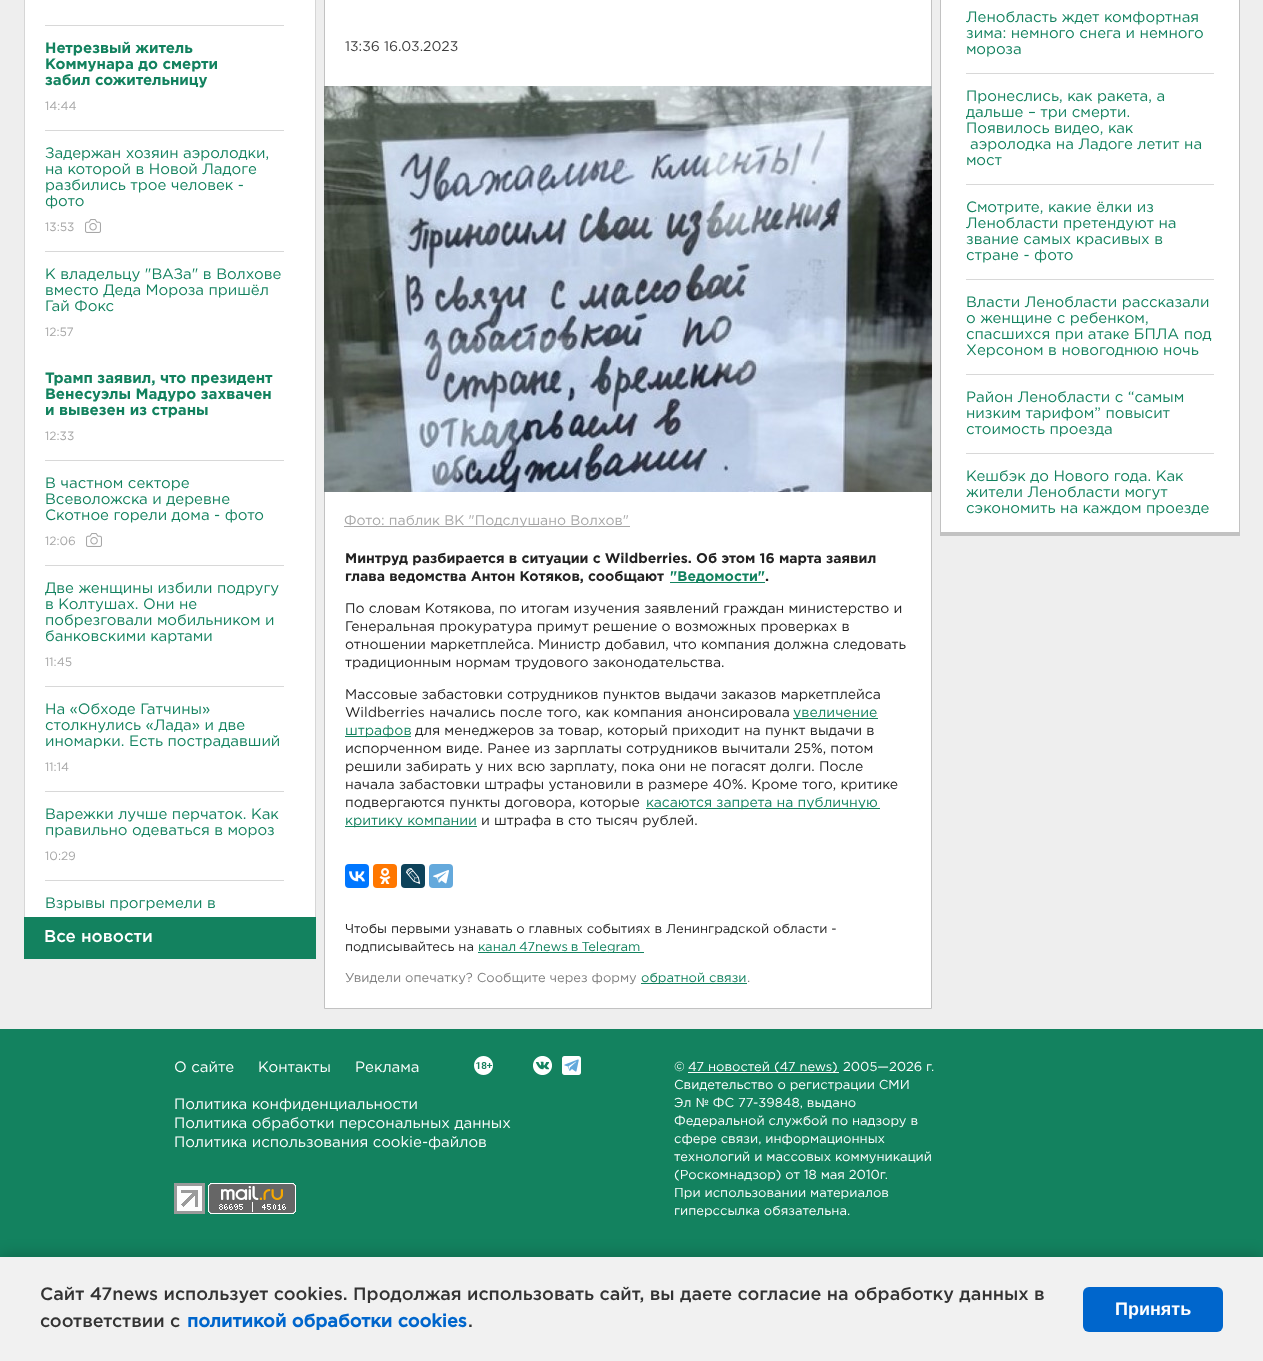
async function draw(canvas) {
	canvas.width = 1263;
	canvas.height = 1361;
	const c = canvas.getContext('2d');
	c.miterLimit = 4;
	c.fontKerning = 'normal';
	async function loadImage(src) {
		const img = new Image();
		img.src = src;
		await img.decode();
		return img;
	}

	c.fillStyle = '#eee';
	c.fillRect(0, 0, 1263, 1361);
	for (const [x, y, w, h, color] of [
		[25, 0, 290, 917, '#fff'],
		[315, 0, 1, 917, '#d6d6d6'],
		[24, 0, 1, 917, '#d6d6d6'],
		[45, 25, 239, 1, '#d8d8d8'],
		[45, 130, 239, 1, '#d8d8d8'],
	]) {
		c.fillStyle = color;
		c.fillRect(x, y, w, h);
	}
	c.font = 'bold 15px Gotham';
	c.fillStyle = '#13825f';
	for (const [text, x, y] of [
		['Нетрезвый житель', 45, 53],
		['Коммунара до смерти', 45, 69],
		['забил сожительницу', 45, 85],
	]) {
		c.fillText(text, x, y);
	}
	c.font = '12px Gotham';
	c.fillStyle = '#a7a7a7';
	c.fillText('14:44', 45, 110);
	c.fillStyle = '#d8d8d8';
	c.fillRect(45, 251, 239, 1);
	c.font = '15px Gotham';
	c.fillStyle = '#13825f';
	for (const [text, x, y] of [
		['Задержан хозяин аэролодки,', 45, 158],
		['на которой в Новой Ладоге', 45, 174],
		['разбились трое человек -', 45, 190],
		['фото', 45, 206],
	]) {
		c.fillText(text, x, y);
	}
	c.font = '12px Gotham';
	c.fillStyle = '#a7a7a7';
	c.fillText('13:53', 45, 231);
	c.drawImage(await loadImage('img1.png'), 85, 219, 16, 14);
	c.font = '15px Gotham';
	c.fillStyle = '#13825f';
	for (const [text, x, y] of [
		['К владельцу "ВАЗа" в Волхове', 45, 279],
		['вместо Деда Мороза пришёл', 45, 295],
		['Гай Фокс', 45, 311],
	]) {
		c.fillText(text, x, y);
	}
	c.font = '12px Gotham';
	c.fillStyle = '#a7a7a7';
	c.fillText('12:57', 45, 336);
	c.fillStyle = '#d8d8d8';
	c.fillRect(45, 460, 239, 1);
	c.font = 'bold 15px Gotham';
	c.fillStyle = '#13825f';
	for (const [text, x, y] of [
		['Трамп заявил, что президент', 45, 383],
		['Венесуэлы Мадуро захвачен', 45, 399],
		['и вывезен из страны', 45, 415],
	]) {
		c.fillText(text, x, y);
	}
	c.font = '12px Gotham';
	c.fillStyle = '#a7a7a7';
	c.fillText('12:33', 45, 440);
	c.fillStyle = '#d8d8d8';
	c.fillRect(45, 565, 239, 1);
	c.font = '15px Gotham';
	c.fillStyle = '#13825f';
	for (const [text, x, y] of [
		['В частном секторе', 45, 488],
		['Всеволожска и деревне', 45, 504],
		['Скотное горели дома - фото', 45, 520],
	]) {
		c.fillText(text, x, y);
	}
	c.font = '12px Gotham';
	c.fillStyle = '#a7a7a7';
	c.fillText('12:06', 45, 545);
	c.drawImage(await loadImage('img1.png'), 86, 533, 16, 14);
	c.fillStyle = '#d8d8d8';
	c.fillRect(45, 686, 239, 1);
	c.font = '15px Gotham';
	c.fillStyle = '#13825f';
	for (const [text, x, y] of [
		['Две женщины избили подругу', 45, 593],
		['в Колтушах. Они не', 45, 609],
		['побрезговали мобильником и', 45, 625],
		['банковскими картами', 45, 641],
	]) {
		c.fillText(text, x, y);
	}
	c.font = '12px Gotham';
	c.fillStyle = '#a7a7a7';
	c.fillText('11:45', 45, 666);
	c.fillStyle = '#d8d8d8';
	c.fillRect(45, 791, 239, 1);
	c.font = '15px Gotham';
	c.fillStyle = '#13825f';
	for (const [text, x, y] of [
		['На «Обходе Гатчины»', 45, 714],
		['столкнулись «Лада» и две', 45, 730],
		['иномарки. Есть пострадавший', 45, 746],
	]) {
		c.fillText(text, x, y);
	}
	c.font = '12px Gotham';
	c.fillStyle = '#a7a7a7';
	c.fillText('11:14', 45, 771);
	c.fillStyle = '#d8d8d8';
	c.fillRect(45, 880, 239, 1);
	c.font = '15px Gotham';
	c.fillStyle = '#13825f';
	c.fillText('Варежки лучше перчаток. Как', 45, 819);
	c.fillText('правильно одеваться в мороз', 45, 835);
	c.font = '12px Gotham';
	c.fillStyle = '#a7a7a7';
	c.fillText('10:29', 45, 860);
	c.font = '15px Gotham';
	c.fillStyle = '#13825f';
	c.fillText('Взрывы прогремели в', 45, 908);
	c.fillRect(24, 917, 292, 42);
	c.font = '500 17px Gotham';
	c.fillStyle = '#fff';
	c.fillText('Все новости', 44, 942);
	c.beginPath();
	c.rect(324.5, -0.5, 607, 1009);
	c.fill();
	c.strokeStyle = '#c2c2c2';
	c.stroke();
	c.font = '14px Gotham';
	c.fillStyle = '#3c3c3c';
	c.fillText('13:36 16.03.2023', 345, 51);
	c.drawImage(await loadImage('img2.png'), 324, 86, 608, 406);
	c.fillStyle = '#a7a7a7';
	c.fillRect(344, 526, 286, 1);
	c.fillText('Фото: паблик ВК "Подслушано Волхов"', 344, 525);
	c.font = 'bold 14px Gotham';
	c.fillStyle = '#222';
	c.fillText('Минтруд разбирается в ситуации с Wildberries. Об этом 16 марта заявил', 345, 563);
	c.fillText('глава ведомства Антон Котяков, сообщают', 345, 581);
	c.fillStyle = '#13825f';
	c.fillRect(670, 582, 95, 1);
	c.fillText('"Ведомости"', 670, 581);
	c.fillStyle = '#222';
	c.fillText('.', 765, 581);
	c.font = '14px Gotham';
	for (const [text, x, y] of [
		['По словам Котякова, по итогам изучения заявлений граждан министерство и', 345, 613],
		['Генеральная прокуратура примут решение о возможных проверках в', 345, 631],
		['отношении маркетплейса. Министр добавил, что компания должна следовать', 345, 649],
		['традиционным нормам трудового законодательства.', 345, 667],
		['Массовые забастовки сотрудников пунктов выдачи заказов маркетплейса', 345, 699],
	]) {
		c.fillText(text, x, y);
	}
	c.wordSpacing = '0.25px';
	c.fillText('Wildberries начались после того, как компания анонсировала', 345, 717);
	c.fillStyle = '#13825f';
	c.fillRect(793, 718, 85, 1);
	c.wordSpacing = '0px';
	c.fillText('увеличение', 793, 717);
	c.fillRect(345, 736, 66, 1);
	c.fillText('штрафов', 345, 735);
	c.fillStyle = '#222';
	for (const [text, x, y] of [
		['для менеджеров за товар, который приходит на пункт выдачи в', 415, 735],
		['испорченном виде. Ранее из зарплаты сотрудников вычитали 25%, потом', 345, 753],
		['решили забирать у них всю зарплату, пока они не погасят долги. После', 345, 771],
		['начала забастовки штрафы установили в размере 40%. Кроме того, критике', 345, 789],
		['подвергаются пункты договора, которые', 345, 807],
	]) {
		c.fillText(text, x, y);
	}
	c.fillStyle = '#13825f';
	c.fillRect(646, 808, 234, 1);
	c.fillText('касаются запрета на публичную', 646, 807);
	c.fillRect(345, 826, 132, 1);
	c.fillText('критику компании', 345, 825);
	c.fillStyle = '#222';
	c.fillText('и штрафа в сто тысяч рублей.', 481, 825);
	c.fillStyle = '#07f';
	c.beginPath();
	c.roundRect(345, 864, 24, 24, 4);
	c.fill();
	c.drawImage(await loadImage('img3.png'), 349, 871, 16, 11);
	c.fillStyle = '#f70';
	c.beginPath();
	c.roundRect(373, 864, 24, 24, 4);
	c.fill();
	c.drawImage(await loadImage('img4.png'), 379, 868, 12, 16);
	c.fillStyle = '#0d425a';
	c.beginPath();
	c.roundRect(401, 864, 24, 24, 4);
	c.fill();
	c.drawImage(await loadImage('img5.png'), 406, 868, 15, 16);
	c.fillStyle = '#64a9dc';
	c.beginPath();
	c.roundRect(429, 864, 24, 24, 4);
	c.fill();
	c.drawImage(await loadImage('img6.png'), 433, 870, 16, 14);
	c.font = '13px Gotham';
	c.fillStyle = '#222';
	c.fillText('Чтобы первыми узнавать о главных событиях в Ленинградской области -', 345, 933);
	c.fillText('подписывайтесь на', 345, 951);
	c.fillStyle = '#13825f';
	c.fillRect(478, 952, 166, 1);
	c.wordSpacing = '-1px';
	c.fillText('канал 47news в Telegram', 478, 951);
	c.wordSpacing = '0px';
	c.fillStyle = '#808080';
	c.fillText('Увидели опечатку? Сообщите через форму', 345, 982);
	c.fillStyle = '#13825f';
	c.fillRect(641, 983, 106, 1);
	c.fillText('обратной связи', 641, 982);
	c.fillStyle = '#808080';
	c.fillText('.', 747, 982);
	for (const [x, y, w, h, color] of [
		[941, 0, 298, 532, '#fff'],
		[1239, 0, 1, 536, '#c2c2c2'],
		[940, 532, 300, 4, '#c2c2c2'],
		[940, 0, 1, 536, '#c2c2c2'],
		[966, 73, 248, 1, '#d8d8d8'],
	]) {
		c.fillStyle = color;
		c.fillRect(x, y, w, h);
	}
	c.font = '15px Gotham';
	c.fillStyle = '#13825f';
	for (const [text, x, y] of [
		['Ленобласть ждет комфортная', 966, 22],
		['зима: немного снега и немного', 966, 38],
		['мороза', 966, 54],
	]) {
		c.fillText(text, x, y);
	}
	c.fillStyle = '#d8d8d8';
	c.fillRect(966, 184, 248, 1);
	c.fillStyle = '#13825f';
	for (const [text, x, y] of [
		['Пронеслись, как ракета, а', 966, 101],
		['дальше – три смерти.', 966, 117],
		['Появилось видео, как', 966, 133],
		['аэролодка на Ладоге летит на', 970, 149],
		['мост', 966, 165],
	]) {
		c.fillText(text, x, y);
	}
	c.fillStyle = '#d8d8d8';
	c.fillRect(966, 279, 248, 1);
	c.fillStyle = '#13825f';
	for (const [text, x, y] of [
		['Смотрите, какие ёлки из', 966, 212],
		['Ленобласти претендуют на', 966, 228],
		['звание самых красивых в', 966, 244],
		['стране - фото', 966, 260],
	]) {
		c.fillText(text, x, y);
	}
	c.fillStyle = '#d8d8d8';
	c.fillRect(966, 374, 248, 1);
	c.fillStyle = '#13825f';
	for (const [text, x, y] of [
		['Власти Ленобласти рассказали', 966, 307],
		['о женщине с ребенком,', 966, 323],
		['спасшихся при атаке БПЛА под', 966, 339],
		['Херсоном в новогоднюю ночь', 966, 355],
	]) {
		c.fillText(text, x, y);
	}
	c.fillStyle = '#d8d8d8';
	c.fillRect(966, 453, 248, 1);
	c.fillStyle = '#13825f';
	for (const [text, x, y] of [
		['Район Ленобласти с “самым', 966, 402],
		['низким тарифом” повысит', 966, 418],
		['стоимость проезда', 966, 434],
		['Кешбэк до Нового года. Как', 966, 481],
		['жители Ленобласти могут', 966, 497],
		['сэкономить на каждом проезде', 966, 513],
	]) {
		c.fillText(text, x, y);
	}
	c.fillRect(0, 1029, 1263, 228);
	c.fillStyle = '#fff';
	for (const [text, x, y] of [
		['О сайте', 174, 1072],
		['Контакты', 258, 1072],
		['Реклама', 355, 1072],
		['Политика конфиденциальности', 174, 1109],
		['Политика обработки персональных данных', 174, 1128],
		['Политика использования cookie-файлов', 174, 1147],
	]) {
		c.fillText(text, x, y);
	}
	c.drawImage(await loadImage('img7.png'), 474, 1056, 19, 19);
	c.drawImage(await loadImage('img8.png'), 533, 1056, 19, 19);
	c.drawImage(await loadImage('img9.png'), 562, 1056, 19, 19);
	c.drawImage(await loadImage('img10.png'), 174, 1183, 31, 31);
	c.drawImage(await loadImage('img11.png'), 208, 1183, 88, 31);
	c.font = '13px Gotham';
	c.fillText('©', 674, 1071);
	c.fillRect(688, 1072, 151, 1);
	for (const [text, x, y] of [
		['47 новостей (47 news)', 688, 1071],
		['2005—2026 г.', 843, 1071],
		['Свидетельство о регистрации СМИ', 674, 1089],
		['Эл № ФС 77-39848, выдано', 674, 1107],
		['Федеральной службой по надзору в', 674, 1125],
		['сфере связи, информационных', 674, 1143],
		['технологий и массовых коммуникаций', 674, 1161],
		['(Роскомнадзор) от 18 мая 2010г.', 674, 1179],
		['При использовании материалов', 674, 1197],
		['гиперссылка обязательна.', 674, 1215],
	]) {
		c.fillText(text, x, y);
	}
	c.fillStyle = '#00000033';
	c.filter = 'blur(7.5px)';
	c.beginPath();
	c.rect(0, 1255, 1263, 104);
	c.fill();
	c.filter = 'none';
	c.fillStyle = '#f1f1f1';
	c.fillRect(0, 1257, 1263, 104);
	c.font = '500 18px Gotham';
	c.fillStyle = '#333';
	c.fillText('Сайт 47news использует cookies. Продолжая использовать сайт, вы даете согласие на обработку данных в', 40, 1300);
	c.fillText('соответствии с', 40, 1327);
	c.font = 'bold 18px "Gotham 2"';
	c.fillStyle = '#06c';
	c.fillText('политикой обработки cookies', 187, 1327);
	c.font = '500 18px Gotham';
	c.fillStyle = '#333';
	c.fillText('.', 468, 1327);
	c.fillStyle = '#06c';
	c.beginPath();
	c.roundRect(1083, 1287, 140, 45, 6);
	c.fill();
	c.font = 'bold 18px Liberation Sans';
	c.fillStyle = '#fff';
	c.fillText('Принять', 1115, 1315);
}

draw(document.querySelector('canvas'));
